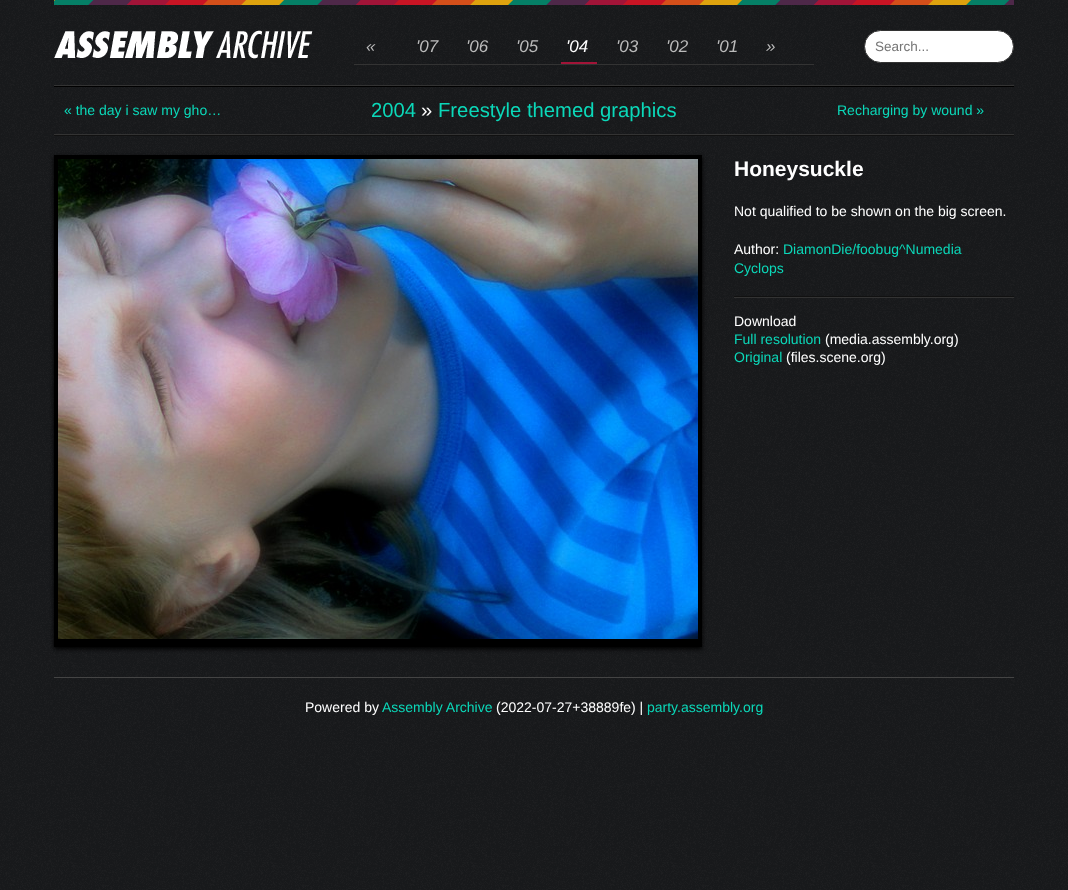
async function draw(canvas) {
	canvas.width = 1068;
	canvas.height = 890;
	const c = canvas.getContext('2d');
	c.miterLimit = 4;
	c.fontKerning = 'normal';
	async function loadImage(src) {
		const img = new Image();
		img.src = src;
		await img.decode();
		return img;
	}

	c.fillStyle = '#fff';
	c.fillRect(0, 0, 1068, 890);
	c.drawImage(await loadImage('img1.png'), 0, 0, 1068, 890);
	c.fillStyle = '#000';
	c.fillRect(54, 86, 960, 1);
	c.drawImage(await loadImage('img2.png'), 54, 0, 960, 5);
	c.fillStyle = '#333';
	c.fillRect(54, 85, 960, 1);
	c.drawImage(await loadImage('img3.png'), 54, 30, 259, 29);
	c.fillRect(354, 64, 460, 1);
	c.font = 'italic 17px Liberation Sans';
	c.fillStyle = '#bbb';
	for (const [text, x, y] of [
		['«', 366, 52],
		['\'07', 416, 52],
		['\'06', 466, 52],
		['\'05', 516, 52],
	]) {
		c.fillText(text, x, y);
	}
	c.fillStyle = '#a21438';
	c.fillRect(561, 62, 36, 2);
	c.fillStyle = '#fff';
	c.fillText('\'04', 566, 52);
	c.fillStyle = '#bbb';
	for (const [text, x, y] of [
		['\'03', 616, 52],
		['\'02', 666, 52],
		['\'01', 716, 52],
		['»', 766, 52],
	]) {
		c.fillText(text, x, y);
	}
	c.fillStyle = '#fff';
	c.beginPath();
	c.roundRect(864.5, 30.5, 149, 32, 16);
	c.fill();
	c.strokeStyle = '#333';
	c.stroke();
	c.font = '13.5px Liberation Sans';
	c.fillStyle = '#757575';
	c.fillText('Search...', 875, 51);
	c.fillStyle = '#111';
	c.fillRect(54, 135, 960, 1);
	c.fillStyle = '#333';
	c.fillRect(54, 134, 960, 1);
	c.font = '14px Liberation Sans';
	c.fillStyle = '#0bd8b9';
	c.fillText('« the day i saw my gho…', 64, 115);
	c.font = '20.25px Liberation Sans';
	c.fillText('2004', 371, 117);
	c.fillStyle = '#fff';
	c.fillText('»', 421, 117);
	c.fillStyle = '#0bd8b9';
	c.fillText('Freestyle themed graphics', 438, 117);
	c.font = '14px Liberation Sans';
	c.fillText('Recharging by wound »', 837, 115);
	c.fillStyle = '#000';
	c.filter = 'blur(2px)';
	c.beginPath();
	c.rect(54, 157, 648, 492);
	c.fill();
	c.filter = 'none';
	c.fillRect(54, 155, 648, 492);
	c.drawImage(await loadImage('img4.png'), 58, 159, 640, 480);
	c.font = 'bold 21px Liberation Sans';
	c.fillStyle = '#fff';
	c.fillText('Honeysuckle', 734, 176);
	c.font = '14px Liberation Sans';
	c.fillText('Not qualified to be shown on the big screen.', 734, 216);
	c.fillText('Author:', 734, 254);
	c.fillStyle = '#0bd8b9';
	c.fillText('DiamonDie/foobug^Numedia', 783, 254);
	c.fillText('Cyclops', 734, 273);
	c.fillStyle = '#111';
	c.fillRect(734, 296, 280, 1);
	c.fillStyle = '#333';
	c.fillRect(734, 297, 280, 1);
	c.fillStyle = '#fff';
	c.fillText('Download', 734, 326);
	c.fillStyle = '#0bd8b9';
	c.fillText('Full resolution', 734, 344);
	c.fillStyle = '#fff';
	c.fillText('(media.assembly.org)', 825, 344);
	c.fillStyle = '#0bd8b9';
	c.fillText('Original', 734, 362);
	c.fillStyle = '#fff';
	c.fillText('(files.scene.org)', 786, 362);
	c.fillStyle = '#444';
	c.fillRect(54, 677, 960, 1);
	c.fillStyle = '#fff';
	c.fillText('Powered by', 305, 712);
	c.fillStyle = '#0bd8b9';
	c.fillText('Assembly Archive', 382, 712);
	c.fillStyle = '#fff';
	c.fillText('(2022-07-27+38889fe) |', 496, 712);
	c.fillStyle = '#0bd8b9';
	c.fillText('party.assembly.org', 647, 712);
}

draw(document.querySelector('canvas'));
